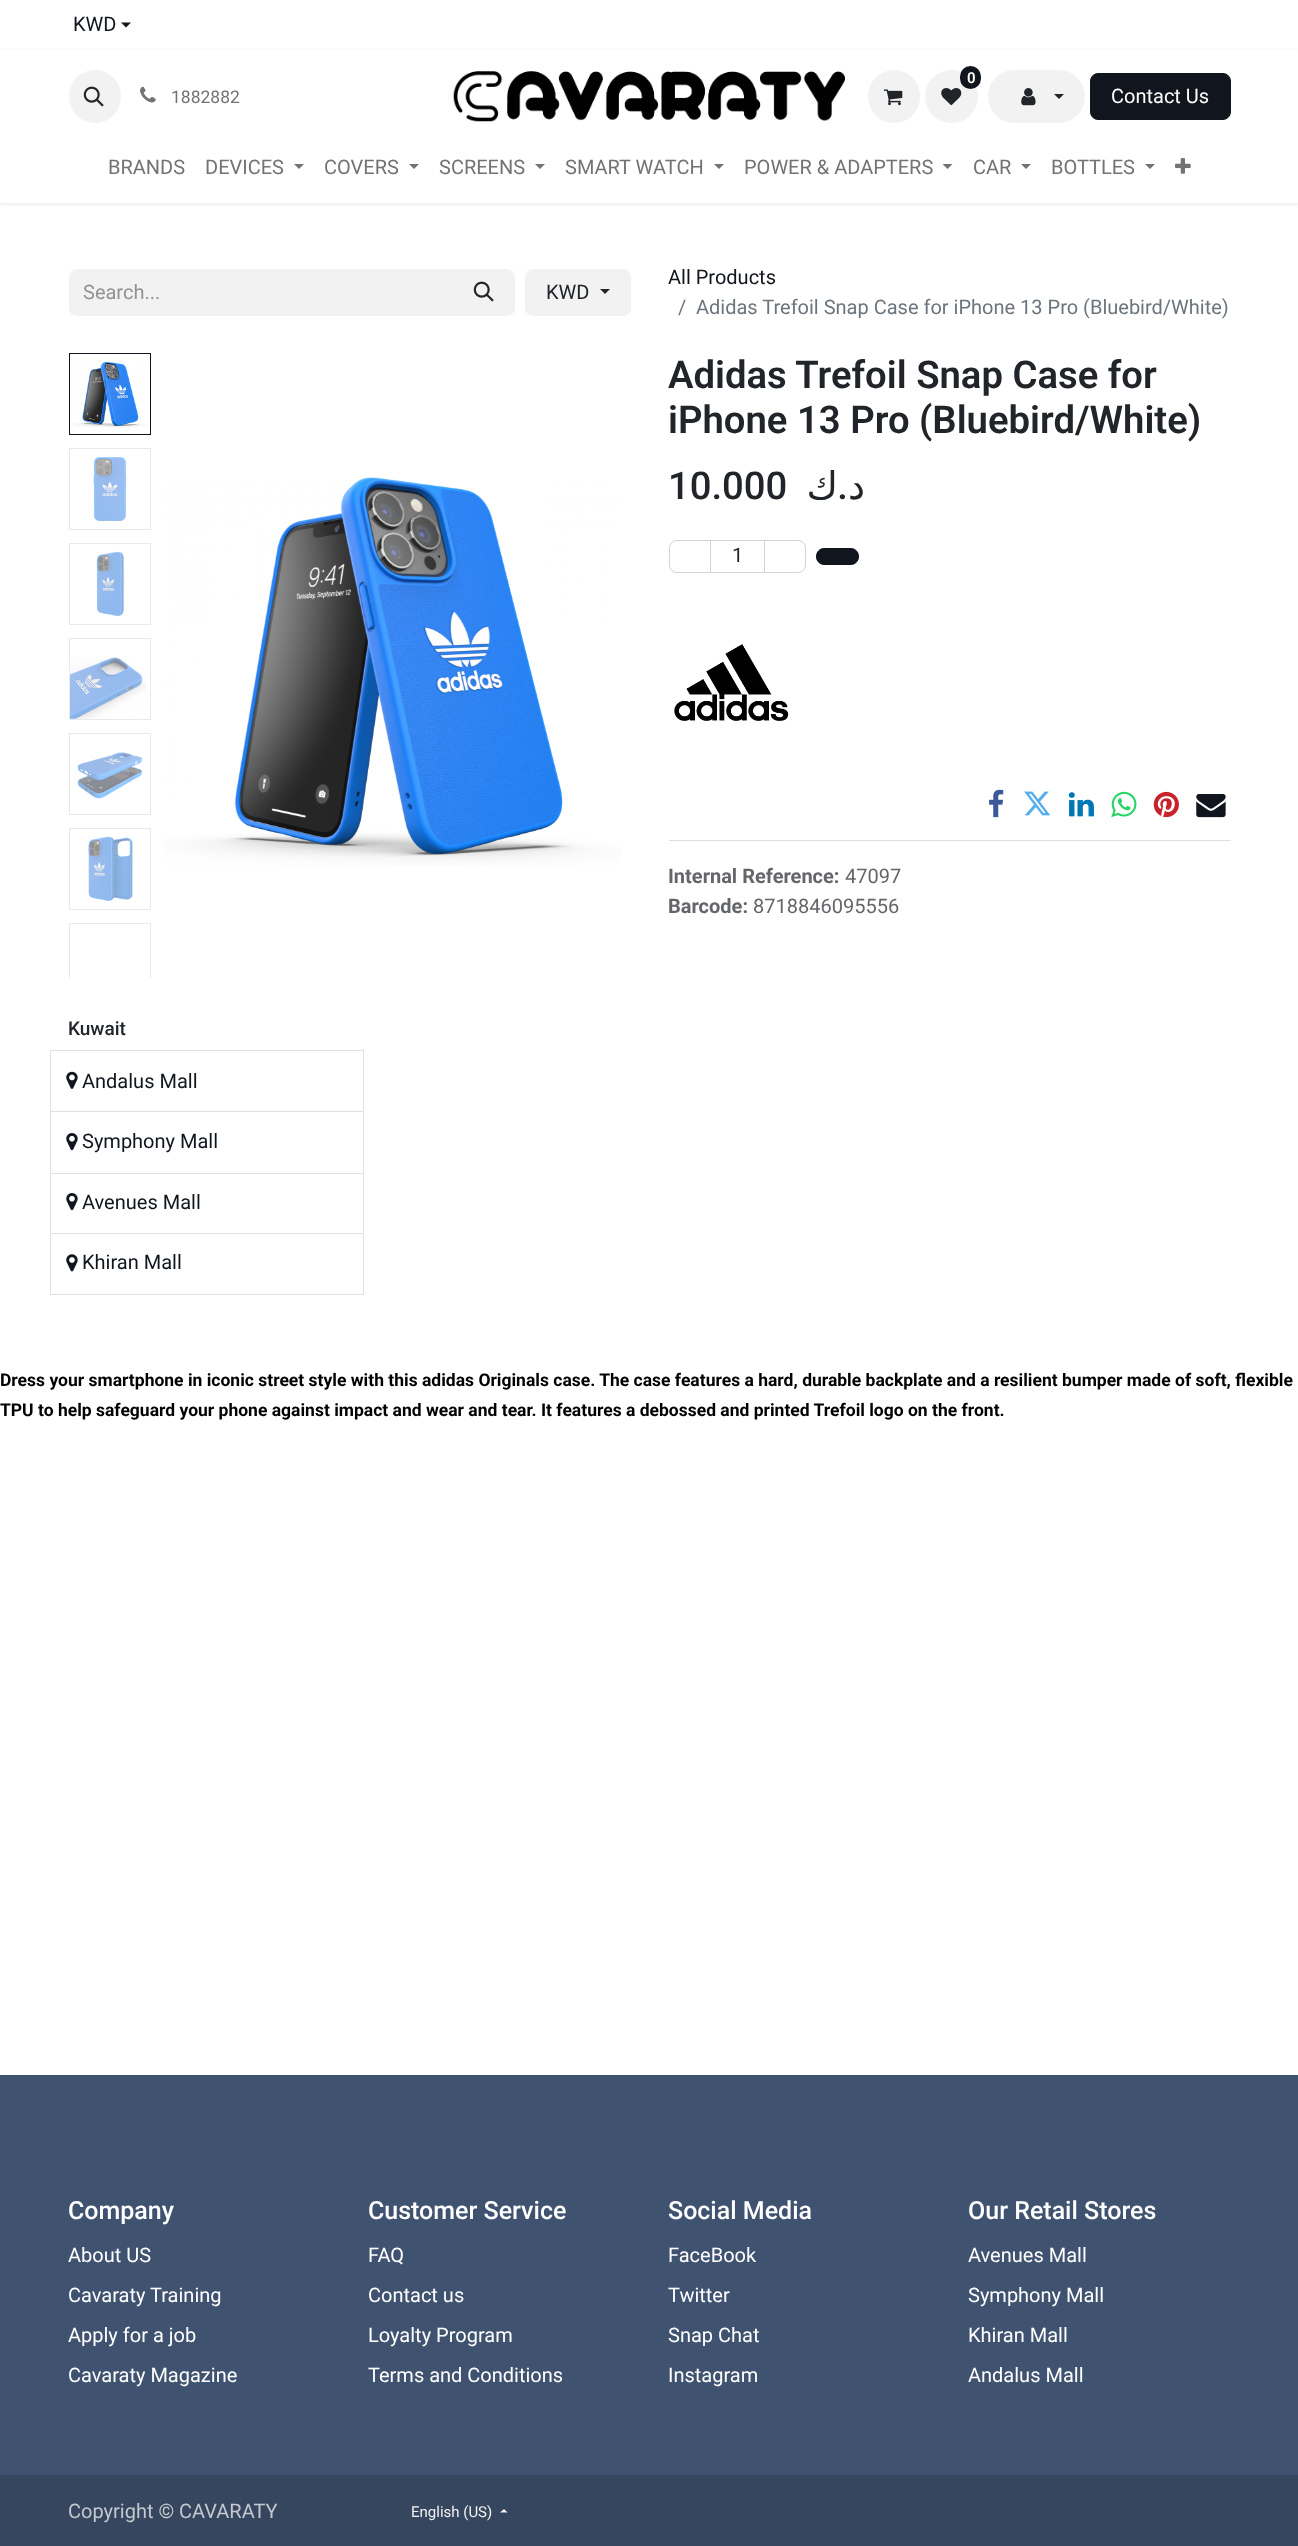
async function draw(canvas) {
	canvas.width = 1298;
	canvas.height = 2546;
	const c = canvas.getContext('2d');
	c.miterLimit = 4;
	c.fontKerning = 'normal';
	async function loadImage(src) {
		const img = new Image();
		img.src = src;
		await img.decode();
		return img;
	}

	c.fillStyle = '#fff';
	c.fillRect(0, 0, 1298, 2546);
	c.font = '20px Roboto';
	c.fillStyle = '#11161e';
	c.fillText('KWD', 73, 31);
	c.beginPath();
	c.moveTo(121, 22.5);
	c.lineTo(131, 22.5);
	c.lineTo(126, 27.5);
	c.closePath();
	c.fill();
	c.fillStyle = '#0000001a';
	c.filter = 'blur(2px)';
	c.beginPath();
	c.rect(0, 51, 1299, 153);
	c.fill();
	c.filter = 'none';
	c.fillStyle = '#fff';
	c.fillRect(0, 50, 1298, 153);
	c.fillStyle = '#f2f2f2';
	c.beginPath();
	c.roundRect(69, 70, 52, 53, 26);
	c.fill();
	c.drawImage(await loadImage('img1.png'), 83, 86, 21, 21);
	c.drawImage(await loadImage('img2.png'), 140, 86, 16, 17);
	c.font = '17.5px Roboto';
	c.fillStyle = '#737373';
	c.fillText('1882882', 171, 103);
	c.drawImage(await loadImage('img3.png'), 453, 71, 392, 51);
	c.fillStyle = '#f2f2f2';
	c.beginPath();
	c.roundRect(868, 70, 52, 53, 26);
	c.fill();
	c.drawImage(await loadImage('img4.png'), 883, 89, 20, 17);
	c.beginPath();
	c.arc(951.5, 96.5, 26.5, 0, 2 * Math.PI);
	c.fill();
	c.drawImage(await loadImage('img5.png'), 941, 88, 21, 18);
	c.fillStyle = '#11161e';
	c.beginPath();
	c.roundRect(960, 66, 21, 23, 10.5);
	c.fill();
	c.font = '600 15px Roboto';
	c.fillStyle = '#fff';
	c.fillText('0', 967, 83);
	c.fillStyle = '#f2f2f2';
	c.beginPath();
	c.roundRect(988, 70, 97, 53, 26.5);
	c.fill();
	c.drawImage(await loadImage('img6.png'), 1021, 88, 15, 18);
	c.fillStyle = '#212529';
	c.beginPath();
	c.moveTo(1054, 94);
	c.lineTo(1064, 94);
	c.lineTo(1059, 99);
	c.closePath();
	c.fill();
	c.fillStyle = '#11161e';
	c.beginPath();
	c.roundRect(1090.5, 73.5, 140, 46, 7.5);
	c.fill();
	c.strokeStyle = '#11161e';
	c.stroke();
	c.font = '20px Roboto';
	c.fillStyle = '#fff';
	c.fillText('Contact Us', 1111, 103);
	c.fillStyle = '#737373';
	c.fillText('BRANDS', 108, 174);
	c.fillText('DEVICES', 205, 174);
	c.beginPath();
	c.moveTo(294, 164);
	c.lineTo(304, 164);
	c.lineTo(299, 169);
	c.closePath();
	c.fill();
	c.fillText('COVERS', 324, 174);
	c.beginPath();
	c.moveTo(409, 164);
	c.lineTo(419, 164);
	c.lineTo(414, 169);
	c.closePath();
	c.fill();
	c.fillText('SCREENS', 439, 174);
	c.beginPath();
	c.moveTo(535, 164);
	c.lineTo(545, 164);
	c.lineTo(540, 169);
	c.closePath();
	c.fill();
	c.fillText('SMART WATCH', 565, 174);
	c.beginPath();
	c.moveTo(714, 164);
	c.lineTo(724, 164);
	c.lineTo(719, 169);
	c.closePath();
	c.fill();
	c.fillText('POWER & ADAPTERS', 744, 174);
	c.beginPath();
	c.moveTo(942.5, 164);
	c.lineTo(952.5, 164);
	c.lineTo(947.5, 169);
	c.closePath();
	c.fill();
	c.fillText('CAR', 973, 174);
	c.beginPath();
	c.moveTo(1021, 164);
	c.lineTo(1031, 164);
	c.lineTo(1026, 169);
	c.closePath();
	c.fill();
	c.fillText('BOTTLES', 1051, 174);
	c.beginPath();
	c.moveTo(1145, 164);
	c.lineTo(1155, 164);
	c.lineTo(1150, 169);
	c.closePath();
	c.fill();
	c.drawImage(await loadImage('img7.png'), 1175, 158, 16, 16);
	c.fillStyle = '#f3f2f2';
	c.beginPath();
	c.roundRect(69, 269, 385, 47, [8, 0, 0, 8]);
	c.fill();
	c.fillStyle = '#909294';
	c.fillText('Search...', 83, 299);
	c.fillStyle = '#f3f2f2';
	c.beginPath();
	c.roundRect(453.5, 269.5, 61, 46, [0, 7.5, 7.5, 0]);
	c.fill();
	c.strokeStyle = '#f3f2f2';
	c.stroke();
	c.drawImage(await loadImage('img8.png'), 473, 281, 21, 21);
	c.beginPath();
	c.roundRect(525.5, 269.5, 105, 46, 7.5);
	c.fill();
	c.stroke();
	c.fillStyle = '#212529';
	c.fillText('KWD', 546, 299);
	c.beginPath();
	c.moveTo(600, 289);
	c.lineTo(610, 289);
	c.lineTo(605, 294);
	c.closePath();
	c.fill();
	c.fillStyle = '#11161e';
	c.fillText('All Products', 668, 284);
	c.fillStyle = '#6c757d';
	c.fillText('/', 678, 314);
	c.fillText('Adidas Trefoil Snap Case for iPhone 13 Pro (Bluebird/White)', 696, 314);
	c.strokeStyle = '#11161e';
	c.strokeRect(69.5, 353.5, 81, 81);
	c.drawImage(await loadImage('img9.png'), 71, 361, 77, 67);
	c.strokeStyle = '#e7eaed';
	c.strokeRect(69.5, 448.5, 81, 81);
	c.drawImage(await loadImage('img10.png'), 93, 457, 34, 64);
	c.strokeRect(69.5, 543.5, 81, 81);
	c.drawImage(await loadImage('img11.png'), 96, 551, 28, 65);
	c.strokeRect(69.5, 638.5, 81, 81);
	c.drawImage(await loadImage('img12.png'), 70, 657, 77, 62);
	c.strokeRect(69.5, 733.5, 81, 81);
	c.drawImage(await loadImage('img13.png'), 77, 752, 66, 47);
	c.strokeRect(69.5, 828.5, 81, 81);
	c.drawImage(await loadImage('img14.png'), 88, 836, 45, 65);
	c.save();
	c.beginPath();
	c.rect(69, 353, 562, 625);
	c.clip();
	c.strokeRect(69.5, 923.5, 81, 81);
	c.restore();
	c.drawImage(await loadImage('img15.png'), 164, 477, 457, 390);
	c.font = '600 38.25px Roboto';
	c.fillStyle = '#212529';
	c.fillText('Adidas Trefoil Snap Case for', 668, 388);
	c.fillText('iPhone 13 Pro (Bluebird/White)', 668, 433);
	c.font = '500 38.25px Roboto';
	c.fillText('10.000', 668, 499);
	c.direction = 'rtl';
	c.font = '38.25px DejaVu Sans';
	c.fillText('ك', 838, 499);
	c.font = '500 38.25px Roboto';
	c.fillText('.', 848, 499);
	c.font = '38.25px DejaVu Sans';
	c.fillText('د', 865, 499);
	c.strokeStyle = '#ced4da';
	c.strokeRect(710.5, 540.5, 54, 32);
	c.beginPath();
	c.roundRect(669.5, 540.5, 41, 32, [7.5, 0, 0, 7.5]);
	c.stroke();
	c.direction = 'ltr';
	c.font = '20px Roboto';
	c.fillText('1', 732, 562);
	c.beginPath();
	c.roundRect(764.5, 540.5, 41, 32, [0, 7.5, 7.5, 0]);
	c.stroke();
	c.fillStyle = '#11161e';
	c.beginPath();
	c.roundRect(816.5, 548.5, 42, 16, 7.5);
	c.fill();
	c.strokeStyle = '#11161e';
	c.stroke();
	c.drawImage(await loadImage('img16.png'), 674, 644, 115, 77);
	c.drawImage(await loadImage('img17.png'), 989, 789, 15, 29);
	c.drawImage(await loadImage('img18.png'), 1024, 791, 27, 25);
	c.drawImage(await loadImage('img19.png'), 1068, 792, 26, 25);
	c.drawImage(await loadImage('img20.png'), 1111, 791, 26, 27);
	c.drawImage(await loadImage('img21.png'), 1153, 791, 26, 27);
	c.drawImage(await loadImage('img22.png'), 1196, 794, 30, 24);
	c.fillStyle = '#dededf';
	c.fillRect(669, 840, 562, 1);
	c.font = 'bold 20px Roboto';
	c.fillStyle = '#646669';
	c.fillText('Internal Reference:', 668, 883);
	c.font = '20px Roboto';
	c.fillText('47097', 845, 883);
	c.font = 'bold 20px Roboto';
	c.fillText('Barcode:', 668, 913);
	c.font = '20px Roboto';
	c.fillText('8718846095556', 753, 913);
	c.font = '500 19px Roboto';
	c.fillStyle = '#212529';
	c.fillText('Kuwait', 68, 1035);
	for (const [x, y, w, h, color] of [
		[50, 1050, 314, 1, '#dee2e6'],
		[363, 1050, 1, 245, '#dee2e6'],
		[50, 1294, 314, 1, '#dee2e6'],
		[50, 1050, 1, 245, '#dee2e6'],
	]) {
		c.fillStyle = color;
		c.fillRect(x, y, w, h);
	}
	c.drawImage(await loadImage('img23.png'), 66, 1071, 12, 18);
	c.font = '20px Roboto';
	c.fillStyle = '#11161e';
	c.fillText('Andalus Mall', 82, 1088);
	c.fillStyle = '#dee2e6';
	c.fillRect(50, 1111, 314, 1);
	c.drawImage(await loadImage('img24.png'), 66, 1133, 12, 18);
	c.fillStyle = '#11161e';
	c.fillText('Symphony Mall', 82, 1148);
	c.fillStyle = '#dee2e6';
	c.fillRect(50, 1173, 314, 1);
	c.drawImage(await loadImage('img24.png'), 66, 1193, 12, 18);
	c.fillStyle = '#11161e';
	c.fillText('Avenues Mall', 82, 1209);
	c.fillStyle = '#dee2e6';
	c.fillRect(50, 1233, 314, 1);
	c.drawImage(await loadImage('img25.png'), 66, 1254, 12, 18);
	c.fillStyle = '#11161e';
	c.fillText('Khiran Mall', 82, 1269);
	c.font = 'bold 17.5px Roboto';
	c.fillStyle = '#000';
	c.fillText('Dress your smartphone in iconic street style with this adidas Originals case. The case features a hard, durable backplate and a resilient bumper made of soft, flexible', 0, 1386);
	c.fillText('TPU to help safeguard your phone against impact and wear and tear. It features a debossed and printed Trefoil logo on the front.', 0, 1416);
	c.fillStyle = '#3f526f';
	c.fillRect(0, 2075, 1298, 400);
	c.font = '500 25px Roboto';
	c.fillStyle = '#fff';
	c.fillText('Company', 68, 2219);
	c.font = '20px Roboto';
	for (const [text, x, y] of [
		['About US', 68, 2262],
		['Cavaraty Training', 68, 2302],
		['Apply for a job', 68, 2342],
		['Cavaraty Magazine', 68, 2382],
	]) {
		c.fillText(text, x, y);
	}
	c.font = '500 25px Roboto';
	c.fillText('Customer Service', 368, 2219);
	c.font = '20px Roboto';
	for (const [text, x, y] of [
		['FAQ', 368, 2262],
		['Contact us', 368, 2302],
		['Loyalty Program', 368, 2342],
		['Terms and Conditions', 368, 2382],
	]) {
		c.fillText(text, x, y);
	}
	c.font = '500 25px Roboto';
	c.fillText('Social Media', 668, 2219);
	c.font = '20px Roboto';
	for (const [text, x, y] of [
		['FaceBook', 668, 2262],
		['Twitter', 668, 2302],
		['Snap Chat', 668, 2342],
		['Instagram', 668, 2382],
	]) {
		c.fillText(text, x, y);
	}
	c.font = '500 25px Roboto';
	c.fillText('Our Retail Stores', 968, 2219);
	c.font = '20px Roboto';
	for (const [text, x, y] of [
		['Avenues Mall', 968, 2262],
		['Symphony Mall', 968, 2302],
		['Khiran Mall', 968, 2342],
		['Andalus Mall', 968, 2382],
	]) {
		c.fillText(text, x, y);
	}
	c.fillStyle = '#36465e';
	c.fillRect(0, 2475, 1298, 71);
	c.fillStyle = '#c3c8cf';
	c.fillText('Copyright © CAVARATY', 68, 2518);
	c.font = '15px Roboto';
	c.fillStyle = '#f3f2f2';
	c.fillText('English (US)', 411, 2517);
	c.beginPath();
	c.moveTo(507.5, 2512.5);
	c.lineTo(500, 2512.5);
	c.lineTo(504, 2509);
	c.closePath();
	c.fill();
}

draw(document.querySelector('canvas'));
